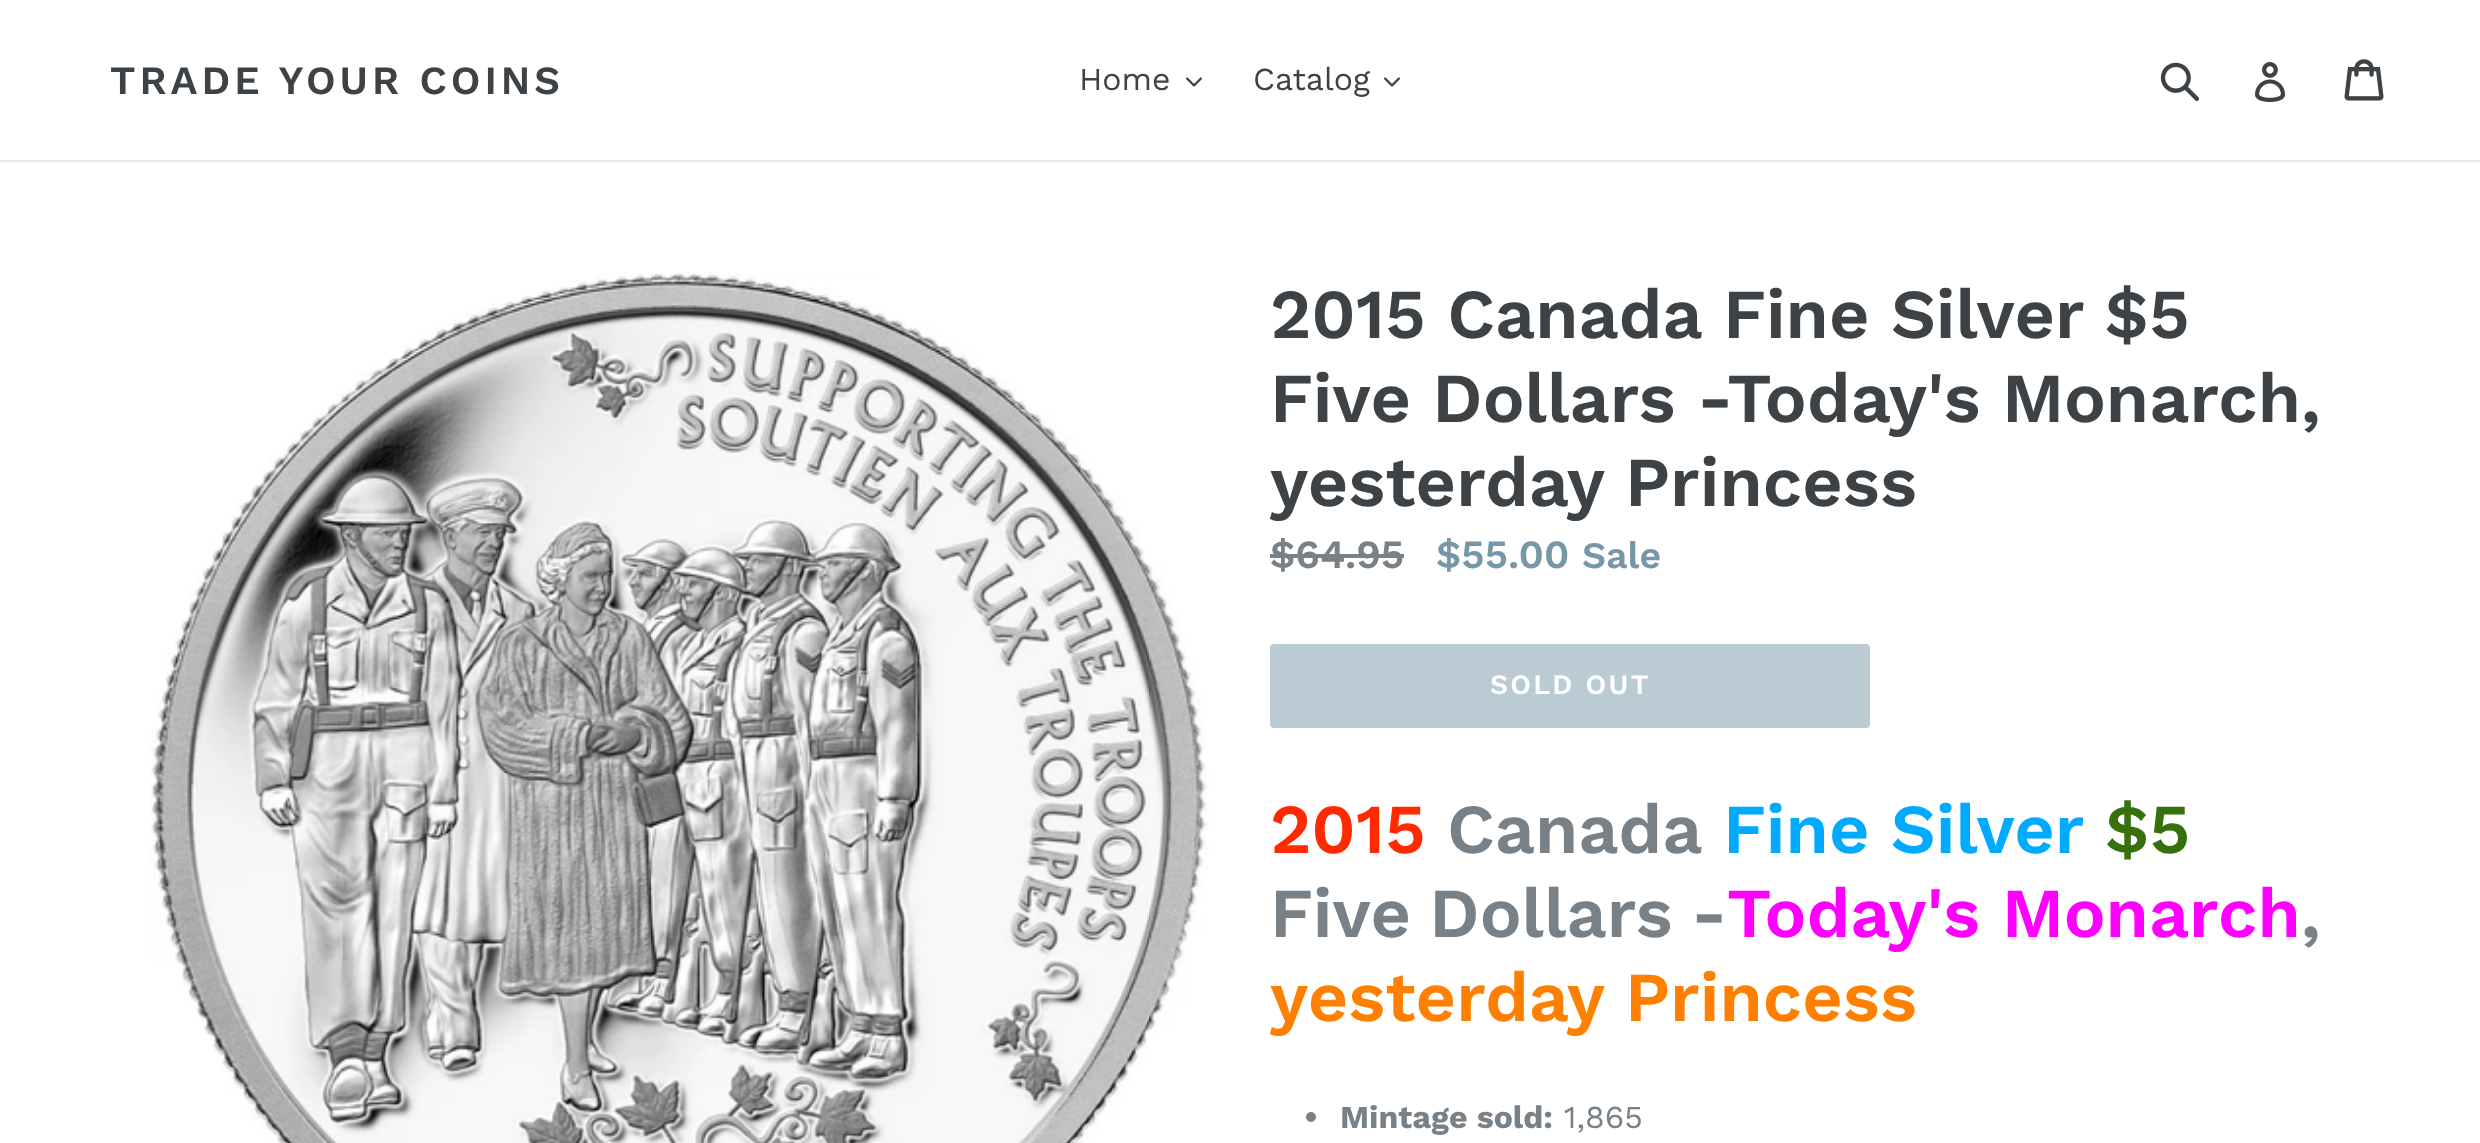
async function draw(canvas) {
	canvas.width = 2480;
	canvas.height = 1143;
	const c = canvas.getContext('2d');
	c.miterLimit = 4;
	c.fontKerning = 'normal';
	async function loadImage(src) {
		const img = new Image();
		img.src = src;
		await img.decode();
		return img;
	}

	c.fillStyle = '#fff';
	c.fillRect(0, 0, 2480, 1143);
	c.fillStyle = '#e8e9eb';
	c.fillRect(0, 160, 2480, 2);
	c.letterSpacing = '4px';
	c.font = '600 40px Work Sans';
	c.fillStyle = '#3d4246';
	c.fillText('TRADE YOUR COINS', 110, 94);
	c.letterSpacing = '0px';
	c.font = '32px Work Sans';
	c.fillText('Home', 1079, 90);
	c.drawImage(await loadImage('img1.png'), 1186, 77, 16, 10);
	c.fillText('Catalog', 1253, 90);
	c.drawImage(await loadImage('img1.png'), 1384, 77, 16, 10);
	c.drawImage(await loadImage('img2.png'), 2160, 62, 40, 40);
	c.drawImage(await loadImage('img3.png'), 2255, 62, 31, 40);
	c.drawImage(await loadImage('img4.png'), 2344, 59, 40, 42);
	c.drawImage(await loadImage('img5.png'), 150, 272, 1059, 871);
	c.font = '600 70px Work Sans';
	for (const [text, x, y] of [
		['2015 Canada Fine Silver $5', 1270, 338],
		['Five Dollars -Today\'s Monarch,', 1270, 422],
		['yesterday Princess', 1270, 506],
	]) {
		c.fillText(text, x, y);
	}
	c.font = '600 40px Work Sans';
	c.fillStyle = '#788188';
	c.fillText('$64.95', 1270, 568);
	c.fillRect(1270, 554, 134, 4);
	c.fillStyle = '#7796a8';
	c.fillText('$55.00', 1436, 568);
	c.font = '600 37.5px Work Sans';
	c.fillText('Sale', 1582, 568);
	c.fillStyle = '#bbcbd4';
	c.beginPath();
	c.roundRect(1270, 644, 600, 84, 4);
	c.fill();
	c.letterSpacing = '2.25px';
	c.font = '600 28px Work Sans';
	c.fillStyle = '#fff';
	c.fillText('SOLD OUT', 1490, 694);
	c.letterSpacing = '0px';
	c.font = '600 70px Work Sans';
	c.fillStyle = '#ff2a00';
	c.fillText('2015', 1270, 853);
	c.fillStyle = '#788188';
	c.fillText('Canada', 1447, 853);
	c.fillStyle = '#0af';
	c.fillText('Fine Silver', 1723, 853);
	c.fillStyle = '#36710e';
	c.fillText('$5', 2105, 853);
	c.wordSpacing = '-3px';
	c.fillStyle = '#788188';
	c.fillText('Five Dollars -', 1270, 937);
	c.wordSpacing = '0px';
	c.fillStyle = '#f0f';
	c.fillText('Today\'s Monarch', 1727, 937);
	c.fillStyle = '#788188';
	c.fillText(',', 2301, 937);
	c.fillStyle = '#ff8000';
	c.fillText('yesterday Princess', 1270, 1021);
	c.fillStyle = '#788188';
	c.beginPath();
	c.arc(1311, 1117, 5, 0, 2 * Math.PI);
	c.fill();
	c.font = 'bold 32px Work Sans';
	c.fillText('Mintage sold:', 1340, 1128);
	c.font = '32px Work Sans';
	c.fillText('1,865', 1564, 1128);
}

draw(document.querySelector('canvas'));
